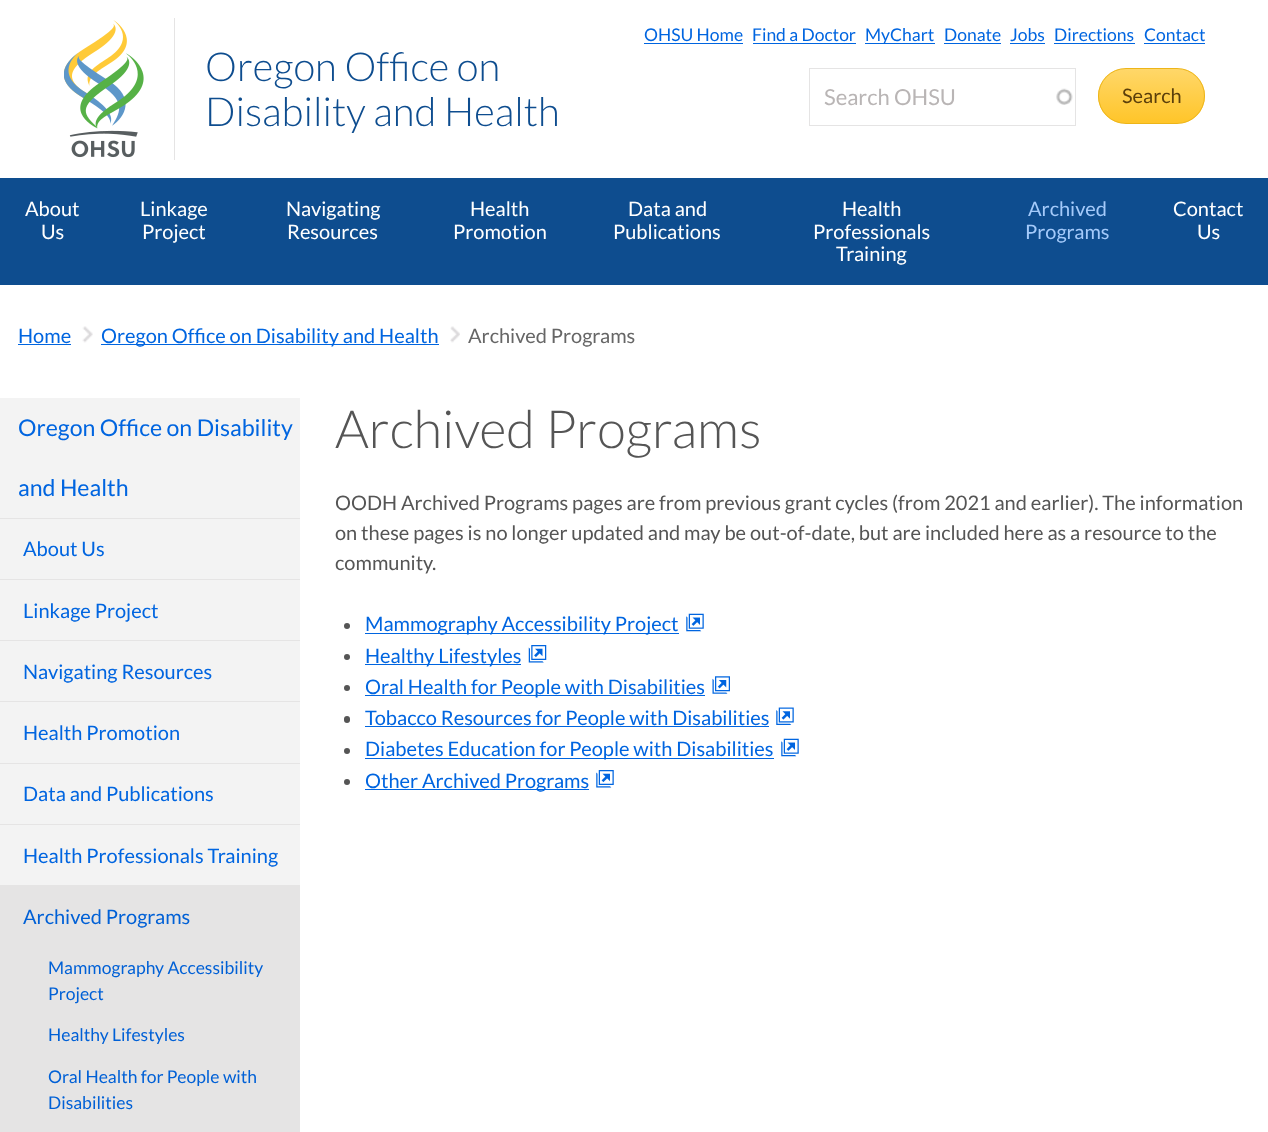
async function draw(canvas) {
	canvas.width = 1268;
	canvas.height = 1132;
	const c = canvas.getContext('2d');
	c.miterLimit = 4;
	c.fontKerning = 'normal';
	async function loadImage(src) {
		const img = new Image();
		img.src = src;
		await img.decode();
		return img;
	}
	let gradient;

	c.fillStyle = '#fff';
	c.fillRect(0, 0, 1268, 1132);
	c.drawImage(await loadImage('img1.png'), 64, 20, 80, 138);
	c.fillStyle = '#e5e4e4';
	c.fillRect(174, 18, 1, 142);
	c.font = '300 40px Lato';
	c.fillStyle = '#0e4d8f';
	c.fillText('Oregon Office on', 205, 81);
	c.fillText('Disability and Health', 205, 126);
	c.font = '17.5px Lato';
	c.fillStyle = '#0065e0';
	c.fillText('OHSU Home', 644, 41);
	c.fillRect(644, 43, 99, 1);
	c.fillText('Find a Doctor', 752, 41);
	c.fillRect(753, 43, 103, 1);
	c.fillRect(865, 43, 70, 1);
	c.fillText('MyChart', 865, 41);
	c.fillText('Donate', 944, 41);
	c.fillRect(944, 43, 57, 1);
	c.fillText('Jobs', 1010, 41);
	c.fillRect(1010, 43, 35, 1);
	c.fillText('Directions', 1054, 41);
	c.fillRect(1054, 43, 81, 1);
	c.fillText('Contact', 1144, 41);
	c.fillRect(1144, 43, 61, 1);
	c.drawImage(await loadImage('img2.png'), 1056, 88, 17, 17);
	c.strokeStyle = '#e5e4e4';
	c.strokeRect(809.5, 68.5, 266, 57);
	c.font = '22px Lato';
	c.fillStyle = '#b9b5b5';
	c.fillText('Search OHSU', 824, 105);
	c.save();
	c.beginPath();
	c.roundRect(1098, 68, 107, 56, 28);
	c.clip();
	gradient = c.createLinearGradient(1151, 69, 1151, 123);
	gradient.addColorStop(0, '#ffd769');
	gradient.addColorStop(1, '#ffc529');
	c.fillStyle = gradient;
	c.fillRect(1098, 69, 107, 54);
	c.restore();
	c.beginPath();
	c.roundRect(1098.5, 68.5, 106, 55, 27.5);
	c.strokeStyle = '#edb519';
	c.stroke();
	c.font = '20px Lato';
	c.fillStyle = '#5b3f0b';
	c.fillText('Search', 1122, 103);
	c.fillStyle = '#0e4d8f';
	c.fillRect(0, 178, 1268, 107);
	c.fillStyle = '#fff';
	for (const [text, x, y] of [
		['About', 25, 216],
		['Us', 41, 239],
		['Linkage', 140, 216],
		['Project', 142, 239],
		['Navigating', 286, 216],
		['Resources', 287, 239],
		['Health', 470, 216],
		['Promotion', 453, 239],
		['Data and', 628, 216],
		['Publications', 613, 239],
		['Health', 842, 216],
		['Professionals', 813, 239],
		['Training', 836, 261],
	]) {
		c.fillText(text, x, y);
	}
	c.fillStyle = '#a4cafa';
	c.fillText('Archived', 1028, 216);
	c.fillText('Programs', 1025, 239);
	c.fillStyle = '#fff';
	c.fillText('Contact', 1173, 216);
	c.fillText('Us', 1197, 239);
	c.fillStyle = '#0065e0';
	c.fillText('Home', 18, 343);
	c.fillRect(18, 344, 53, 1);
	c.drawImage(await loadImage('img3.png'), 82, 326, 11, 17);
	c.fillRect(101, 344, 338, 1);
	c.fillText('Oregon Office on Disability and Health', 101, 343);
	c.drawImage(await loadImage('img4.png'), 450, 326, 10, 17);
	c.fillStyle = '#666';
	c.fillText('Archived Programs', 468, 343);
	c.fillStyle = '#f3f3f3';
	c.fillRect(0, 398, 300, 120);
	c.fillStyle = '#e5e4e4';
	c.fillRect(0, 518, 300, 1);
	c.font = '23.1px Lato';
	c.fillStyle = '#0065e0';
	c.fillText('Oregon Office on Disability', 18, 436);
	c.fillText('and Health', 18, 496);
	c.fillStyle = '#f3f3f3';
	c.fillRect(0, 519, 300, 60);
	c.font = '20px Lato';
	c.fillStyle = '#0065e0';
	c.fillText('About Us', 23, 556);
	c.fillStyle = '#f3f3f3';
	c.fillRect(0, 580, 300, 60);
	c.fillStyle = '#e5e4e4';
	c.fillRect(0, 579, 300, 1);
	c.fillStyle = '#0065e0';
	c.fillText('Linkage Project', 23, 618);
	c.fillStyle = '#f3f3f3';
	c.fillRect(0, 641, 300, 60);
	c.fillStyle = '#e5e4e4';
	c.fillRect(0, 640, 300, 1);
	c.fillStyle = '#0065e0';
	c.fillText('Navigating Resources', 23, 679);
	c.fillStyle = '#f3f3f3';
	c.fillRect(0, 702, 300, 61);
	c.fillStyle = '#e5e4e4';
	c.fillRect(0, 701, 300, 1);
	c.fillStyle = '#0065e0';
	c.fillText('Health Promotion', 23, 740);
	c.fillStyle = '#f3f3f3';
	c.fillRect(0, 764, 300, 60);
	c.fillStyle = '#e5e4e4';
	c.fillRect(0, 763, 300, 1);
	c.fillStyle = '#0065e0';
	c.fillText('Data and Publications', 23, 801);
	c.fillStyle = '#f3f3f3';
	c.fillRect(0, 825, 300, 60);
	c.fillStyle = '#e5e4e4';
	c.fillRect(0, 824, 300, 1);
	c.fillStyle = '#0065e0';
	c.fillText('Health Professionals Training', 23, 863);
	c.fillStyle = '#e5e4e4';
	c.fillRect(0, 885, 300, 247);
	c.fillStyle = '#0060d6';
	c.fillText('Archived Programs', 23, 924);
	c.font = '17.5px Lato';
	for (const [text, x, y] of [
		['Mammography Accessibility', 48, 974],
		['Project', 48, 1000],
		['Healthy Lifestyles', 48, 1041],
		['Oral Health for People with', 48, 1083],
		['Disabilities', 48, 1109],
	]) {
		c.fillText(text, x, y);
	}
	c.font = '300 52.5px Lato';
	c.fillStyle = '#555';
	c.fillText('Archived Programs', 335, 448);
	c.font = '20px Lato';
	for (const [text, x, y] of [
		['OODH Archived Programs pages are from previous grant cycles (from 2021 and earlier). The information', 335, 510],
		['on these pages is no longer updated and may be out-of-date, but are included here as a resource to the', 335, 540],
		['community.', 335, 570],
	]) {
		c.fillText(text, x, y);
	}
	c.beginPath();
	c.arc(347, 626, 3, 0, 2 * Math.PI);
	c.fill();
	c.fillStyle = '#0065e0';
	c.fillRect(365, 633, 314, 1);
	c.fillText('Mammography Accessibility Project', 365, 631);
	c.drawImage(await loadImage('img5.png'), 686, 613, 18, 19);
	c.fillStyle = '#555';
	c.beginPath();
	c.arc(347, 657, 3, 0, 2 * Math.PI);
	c.fill();
	c.fillStyle = '#0065e0';
	c.fillRect(365, 664, 156, 1);
	c.fillText('Healthy Lifestyles', 365, 663);
	c.drawImage(await loadImage('img6.png'), 528, 645, 19, 18);
	c.fillStyle = '#555';
	c.beginPath();
	c.arc(347, 688, 3, 0, 2 * Math.PI);
	c.fill();
	c.fillStyle = '#0065e0';
	c.fillRect(365, 695, 340, 1);
	c.fillText('Oral Health for People with Disabilities', 365, 694);
	c.drawImage(await loadImage('img7.png'), 712, 676, 18, 18);
	c.fillStyle = '#555';
	c.beginPath();
	c.roundRect(344, 716, 6, 7, 3);
	c.fill();
	c.fillStyle = '#0065e0';
	c.fillRect(365, 726, 404, 1);
	c.fillText('Tobacco Resources for People with Disabilities', 365, 725);
	c.drawImage(await loadImage('img8.png'), 776, 707, 18, 18);
	c.fillStyle = '#555';
	c.beginPath();
	c.arc(347, 751, 3, 0, 2 * Math.PI);
	c.fill();
	c.fillStyle = '#0065e0';
	c.fillRect(365, 758, 409, 1);
	c.fillText('Diabetes Education for People with Disabilities', 365, 756);
	c.drawImage(await loadImage('img5.png'), 781, 738, 18, 19);
	c.fillStyle = '#555';
	c.beginPath();
	c.arc(347, 782, 3, 0, 2 * Math.PI);
	c.fill();
	c.fillStyle = '#0065e0';
	c.fillRect(365, 789, 224, 1);
	c.fillText('Other Archived Programs', 365, 788);
	c.drawImage(await loadImage('img9.png'), 596, 770, 18, 18);
}

draw(document.querySelector('canvas'));
